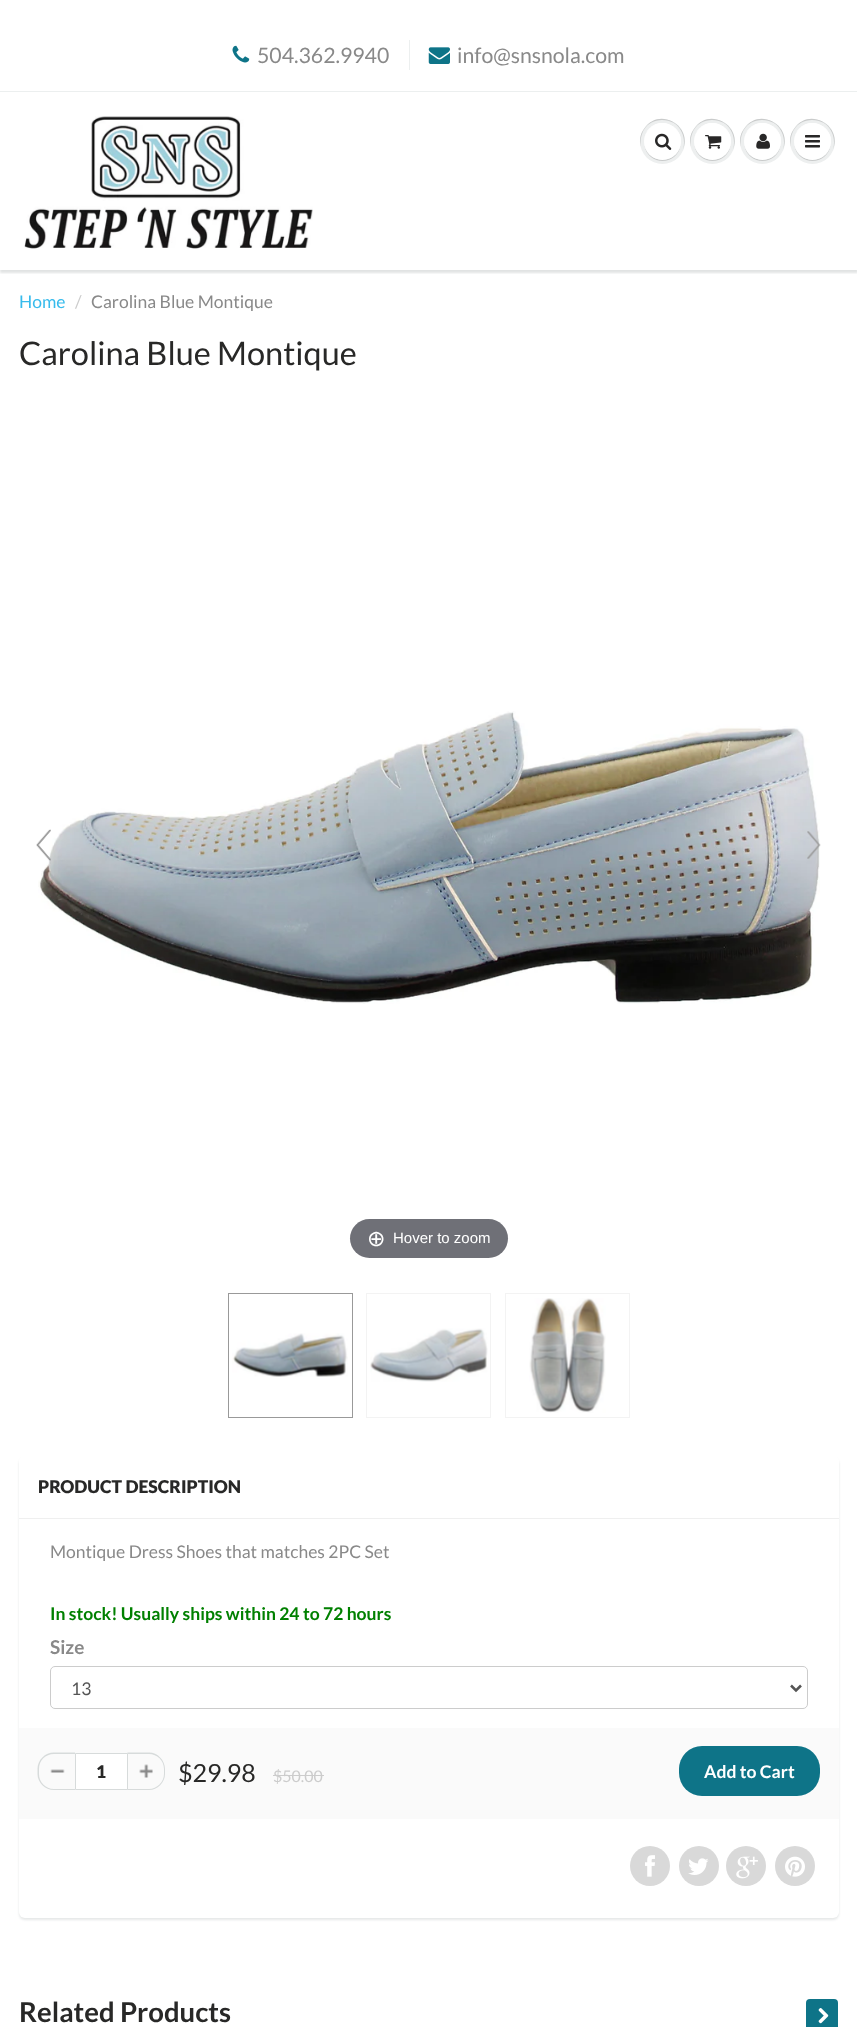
async function draw(canvas) {
	canvas.width = 857;
	canvas.height = 2027;
	const c = canvas.getContext('2d');
	c.miterLimit = 4;
	c.fontKerning = 'normal';
	async function loadImage(src) {
		const img = new Image();
		img.src = src;
		await img.decode();
		return img;
	}

	c.fillStyle = '#fff';
	c.fillRect(0, 0, 857, 2027);
	c.drawImage(await loadImage('img1.png'), 232, 45, 18, 18);
	c.font = '21.25px Lato';
	c.fillStyle = '#898989';
	c.fillText('504.362.9940', 257, 63);
	c.fillStyle = '#ecefef';
	c.fillRect(409, 40, 1, 30);
	c.drawImage(await loadImage('img2.png'), 428, 47, 22, 17);
	c.fillStyle = '#898989';
	c.fillText('info@snsnola.com', 457, 63);
	c.save();
	c.beginPath();
	c.rect(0, 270, 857, 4);
	c.clip();
	c.fillStyle = '#0b191c1f';
	c.filter = 'blur(1px)';
	c.beginPath();
	c.rect(0, 94, 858, 179);
	c.fill();
	c.filter = 'none';
	c.restore();
	c.fillStyle = '#ecefef';
	c.fillRect(0, 91, 857, 1);
	c.drawImage(await loadImage('img3.png'), 24, 116, 289, 133);
	c.fillStyle = '#edefef';
	c.beginPath();
	c.arc(662.5, 141.5, 22.5, 0, 2 * Math.PI);
	c.fill();
	c.fillStyle = '#c9cbcb';
	c.beginPath();
	c.moveTo(662, 120);
	c.bezierCurveTo(680, 120, 687, 137, 683, 150);
	c.bezierCurveTo(693, 126, 659, 106, 644, 129);
	c.bezierCurveTo(640, 134, 639, 141, 641, 147);
	c.bezierCurveTo(639, 134, 646, 120, 662, 120);
	c.closePath();
	c.fill();
	c.beginPath();
	c.moveTo(644.5, 145.5);
	c.bezierCurveTo(647.5, 166, 677.5, 166, 680.5, 145.5);
	c.bezierCurveTo(676, 164.5, 649, 164.5, 644.5, 145.5);
	c.closePath();
	c.fill();
	c.fillStyle = '#fff';
	c.beginPath();
	c.arc(662.5, 141.5, 18.5, 0, 2 * Math.PI);
	c.fill();
	c.beginPath();
	c.moveTo(662, 124);
	c.bezierCurveTo(676, 124, 682, 135.5, 680.5, 146);
	c.bezierCurveTo(685.5, 126.5, 659, 114, 647, 131);
	c.bezierCurveTo(645, 134.5, 644, 138, 644, 142);
	c.bezierCurveTo(644, 133, 650, 124, 662, 124);
	c.closePath();
	c.fill();
	c.drawImage(await loadImage('img4.png'), 655, 133, 17, 17);
	c.fillStyle = '#edefef';
	c.beginPath();
	c.arc(712.5, 141.5, 22.5, 0, 2 * Math.PI);
	c.fill();
	c.fillStyle = '#c9cbcb';
	c.beginPath();
	c.moveTo(712, 120);
	c.bezierCurveTo(730, 120, 737, 137, 733, 150);
	c.bezierCurveTo(743, 126, 709, 106, 694, 129);
	c.bezierCurveTo(690, 134, 689, 141, 691, 147);
	c.bezierCurveTo(689, 134, 696, 120, 712, 120);
	c.closePath();
	c.fill();
	c.beginPath();
	c.moveTo(694.5, 145.5);
	c.bezierCurveTo(697.5, 166, 727.5, 166, 730.5, 145.5);
	c.bezierCurveTo(726, 164.5, 699, 164.5, 694.5, 145.5);
	c.closePath();
	c.fill();
	c.fillStyle = '#fff';
	c.beginPath();
	c.arc(712.5, 141.5, 18.5, 0, 2 * Math.PI);
	c.fill();
	c.beginPath();
	c.moveTo(712, 124);
	c.bezierCurveTo(726, 124, 732, 135.5, 730.5, 146);
	c.bezierCurveTo(735.5, 126.5, 709, 114, 697, 131);
	c.bezierCurveTo(695, 134.5, 694, 138, 694, 142);
	c.bezierCurveTo(694, 133, 700, 124, 712, 124);
	c.closePath();
	c.fill();
	c.drawImage(await loadImage('img5.png'), 705, 135, 17, 14);
	c.fillStyle = '#edefef';
	c.beginPath();
	c.arc(762.5, 141.5, 22.5, 0, 2 * Math.PI);
	c.fill();
	c.fillStyle = '#c9cbcb';
	c.beginPath();
	c.moveTo(762, 120);
	c.bezierCurveTo(780, 120, 787, 137, 783, 150);
	c.bezierCurveTo(793, 126, 759, 106, 744, 129);
	c.bezierCurveTo(740, 134, 739, 141, 741, 147);
	c.bezierCurveTo(739, 134, 746, 120, 762, 120);
	c.closePath();
	c.fill();
	c.beginPath();
	c.moveTo(744.5, 145.5);
	c.bezierCurveTo(747.5, 166, 777.5, 166, 780.5, 145.5);
	c.bezierCurveTo(776, 164.5, 749, 164.5, 744.5, 145.5);
	c.closePath();
	c.fill();
	c.fillStyle = '#fff';
	c.beginPath();
	c.arc(762.5, 141.5, 18.5, 0, 2 * Math.PI);
	c.fill();
	c.beginPath();
	c.moveTo(762, 124);
	c.bezierCurveTo(776, 124, 782, 135.5, 780.5, 146);
	c.bezierCurveTo(785.5, 126.5, 759, 114, 747, 131);
	c.bezierCurveTo(745, 134.5, 744, 138, 744, 142);
	c.bezierCurveTo(744, 133, 750, 124, 762, 124);
	c.closePath();
	c.fill();
	c.drawImage(await loadImage('img6.png'), 756, 133, 14, 16);
	c.fillStyle = '#edefef';
	c.beginPath();
	c.arc(812.5, 141.5, 22.5, 0, 2 * Math.PI);
	c.fill();
	c.fillStyle = '#c9cbcb';
	c.beginPath();
	c.moveTo(812, 120);
	c.bezierCurveTo(830, 120, 837, 137, 833, 150);
	c.bezierCurveTo(843, 126, 809, 106, 794, 129);
	c.bezierCurveTo(790, 134, 789, 141, 791, 147);
	c.bezierCurveTo(789, 134, 796, 120, 812, 120);
	c.closePath();
	c.fill();
	c.beginPath();
	c.moveTo(794.5, 145.5);
	c.bezierCurveTo(797.5, 166, 827.5, 166, 830.5, 145.5);
	c.bezierCurveTo(826, 164.5, 799, 164.5, 794.5, 145.5);
	c.closePath();
	c.fill();
	c.fillStyle = '#fff';
	c.beginPath();
	c.arc(812.5, 141.5, 18.5, 0, 2 * Math.PI);
	c.fill();
	c.beginPath();
	c.moveTo(812, 124);
	c.bezierCurveTo(826, 124, 832, 135.5, 830.5, 146);
	c.bezierCurveTo(835.5, 126.5, 809, 114, 797, 131);
	c.bezierCurveTo(795, 134.5, 794, 138, 794, 142);
	c.bezierCurveTo(794, 133, 800, 124, 812, 124);
	c.closePath();
	c.fill();
	c.drawImage(await loadImage('img7.png'), 805, 135, 15, 13);
	c.font = '17.5px Lato';
	c.fillStyle = '#37bbec';
	c.fillText('Home', 19, 308);
	c.fillStyle = '#ccc';
	c.fillText('/', 75, 308);
	c.fillStyle = '#898989';
	c.fillText('Carolina Blue Montique', 91, 308);
	c.font = '32.5px Lato';
	c.fillStyle = '#282827';
	c.fillText('Carolina Blue Montique', 19, 365);
	c.drawImage(await loadImage('img10.png'), 38, 711, 782, 293);
	c.drawImage(await loadImage('img8.png'), 36, 829, 15, 32);
	c.drawImage(await loadImage('img9.png'), 807, 831, 14, 28);
	c.fillStyle = '#6f7077';
	c.beginPath();
	c.roundRect(350, 1219, 158, 39, 19.5);
	c.fill();
	c.font = '22px DejaVu Sans';
	c.fillStyle = '#fff';
	c.fillText('⊕', 367, 1246);
	c.font = '15px Liberation Sans';
	c.fillText('Hover to zoom', 393, 1243);
	c.strokeStyle = '#999';
	c.strokeRect(228.5, 1293.5, 124, 124);
	c.drawImage(await loadImage('img11.png'), 232, 1333, 116, 44);
	c.strokeStyle = '#f3f3f3';
	c.strokeRect(366.5, 1293.5, 124, 124);
	c.drawImage(await loadImage('img12.png'), 370, 1328, 118, 54);
	c.strokeRect(505.5, 1293.5, 124, 124);
	c.drawImage(await loadImage('img13.png'), 529, 1298, 77, 115);
	c.fillStyle = '#0b191c1a';
	c.filter = 'blur(1px)';
	c.beginPath();
	c.roundRect(19, 1458, 820, 462, 6);
	c.fill();
	c.filter = 'none';
	c.fillStyle = '#fff';
	c.beginPath();
	c.roundRect(19, 1455, 820, 463, 6);
	c.fill();
	c.fillStyle = '#efefef';
	c.fillRect(19, 1518, 820, 1);
	c.font = '900 17.5px Lato';
	c.fillStyle = '#282827';
	c.fillText('PRODUCT DESCRIPTION', 38, 1493);
	c.font = '17.5px Lato';
	c.fillStyle = '#898989';
	c.fillText('Montique Dress Shoes that matches 2PC Set', 50, 1558);
	c.font = 'bold 17.5px Lato';
	c.fillStyle = '#008000';
	c.fillText('In stock! Usually ships within 24 to 72 hours', 50, 1620);
	c.font = 'bold 19px Lato';
	c.fillStyle = '#898989';
	c.fillText('Size', 50, 1654);
	c.beginPath();
	c.roundRect(50.5, 1666.5, 757, 42, 4.5);
	c.strokeStyle = '#ccc';
	c.stroke();
	c.beginPath();
	c.moveTo(791, 1685.5);
	c.lineTo(796, 1690.5);
	c.lineTo(801, 1685.5);
	c.strokeStyle = '#555';
	c.lineWidth = 2.5;
	c.stroke();
	c.font = '17.5px Lato';
	c.fillStyle = '#555';
	c.fillText('13', 71, 1695);
	c.fillStyle = '#fafafa';
	c.fillRect(19, 1728, 820, 91);
	c.drawImage(await loadImage('img14.png'), 50, 1769, 15, 4);
	c.fillStyle = '#d7dbdb';
	c.beginPath();
	c.moveTo(54, 1752.5);
	c.lineTo(75, 1752.5);
	c.lineTo(75, 1790);
	c.lineTo(54, 1790);
	c.bezierCurveTo(45, 1790, 37.5, 1782.5, 37.5, 1774);
	c.lineTo(37.5, 1769);
	c.bezierCurveTo(37.5, 1760, 45, 1752.5, 54, 1752.5);
	c.closePath();
	c.moveTo(54, 1754);
	c.lineTo(75, 1754);
	c.lineTo(75, 1789);
	c.lineTo(54, 1789);
	c.bezierCurveTo(45.5, 1789, 39, 1782, 39, 1774);
	c.lineTo(39, 1769);
	c.bezierCurveTo(39, 1760.5, 45.5, 1754, 54, 1754);
	c.closePath();
	c.fill('evenodd');
	c.fillStyle = '#fff';
	c.beginPath();
	c.rect(75.5, 1753.5, 52, 36);
	c.fill();
	c.strokeStyle = '#d7dbdb';
	c.lineWidth = 1;
	c.stroke();
	c.font = '900 17.5px Lato';
	c.fillStyle = '#282827';
	c.fillText('1', 96, 1778);
	c.drawImage(await loadImage('img15.png'), 139, 1764, 14, 14);
	c.fillStyle = '#d7dbdb';
	c.beginPath();
	c.moveTo(127.5, 1752.5);
	c.lineTo(149, 1752.5);
	c.bezierCurveTo(157.5, 1752.5, 165, 1760, 165, 1769);
	c.lineTo(165, 1774);
	c.bezierCurveTo(165, 1782.5, 157.5, 1790, 149, 1790);
	c.lineTo(127.5, 1790);
	c.closePath();
	c.moveTo(127.5, 1754);
	c.lineTo(149, 1754);
	c.bezierCurveTo(157, 1754, 164, 1760.5, 164, 1769);
	c.lineTo(164, 1774);
	c.bezierCurveTo(164, 1782, 157, 1789, 149, 1789);
	c.lineTo(127.5, 1789);
	c.closePath();
	c.fill('evenodd');
	c.font = '25px Lato';
	c.fillStyle = '#282827';
	c.fillText('$29.98', 178, 1782);
	c.font = '16px Lato';
	c.fillStyle = '#ccc';
	c.fillText('$50.00', 273, 1782);
	c.fillRect(273, 1775, 51, 1);
	c.fillStyle = '#0e7488';
	c.beginPath();
	c.roundRect(679, 1746, 141, 50, 23);
	c.fill();
	c.font = 'bold 17.5px Lato';
	c.fillStyle = '#fff';
	c.fillText('Add to Cart', 704, 1778);
	c.fillStyle = '#d9d9d9';
	c.beginPath();
	c.arc(650, 1866, 20, 0, 2 * Math.PI);
	c.fill();
	c.drawImage(await loadImage('img16.png'), 645, 1855, 10, 22);
	c.beginPath();
	c.arc(699, 1866, 20, 0, 2 * Math.PI);
	c.fill();
	c.drawImage(await loadImage('img17.png'), 688, 1858, 21, 17);
	c.beginPath();
	c.arc(746, 1866, 20, 0, 2 * Math.PI);
	c.fill();
	c.drawImage(await loadImage('img18.png'), 736, 1856, 22, 23);
	c.beginPath();
	c.arc(795, 1866, 20, 0, 2 * Math.PI);
	c.fill();
	c.drawImage(await loadImage('img19.png'), 785, 1856, 20, 21);
	c.font = 'bold 27.5px Lato';
	c.fillStyle = '#282827';
	c.fillText('Related Products', 19, 2022);
	c.fillStyle = '#0e7488';
	c.beginPath();
	c.roundRect(806, 1999, 32, 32, 4);
	c.fill();
	c.drawImage(await loadImage('img20.png'), 818, 2008, 11, 16);
}

draw(document.querySelector('canvas'));
